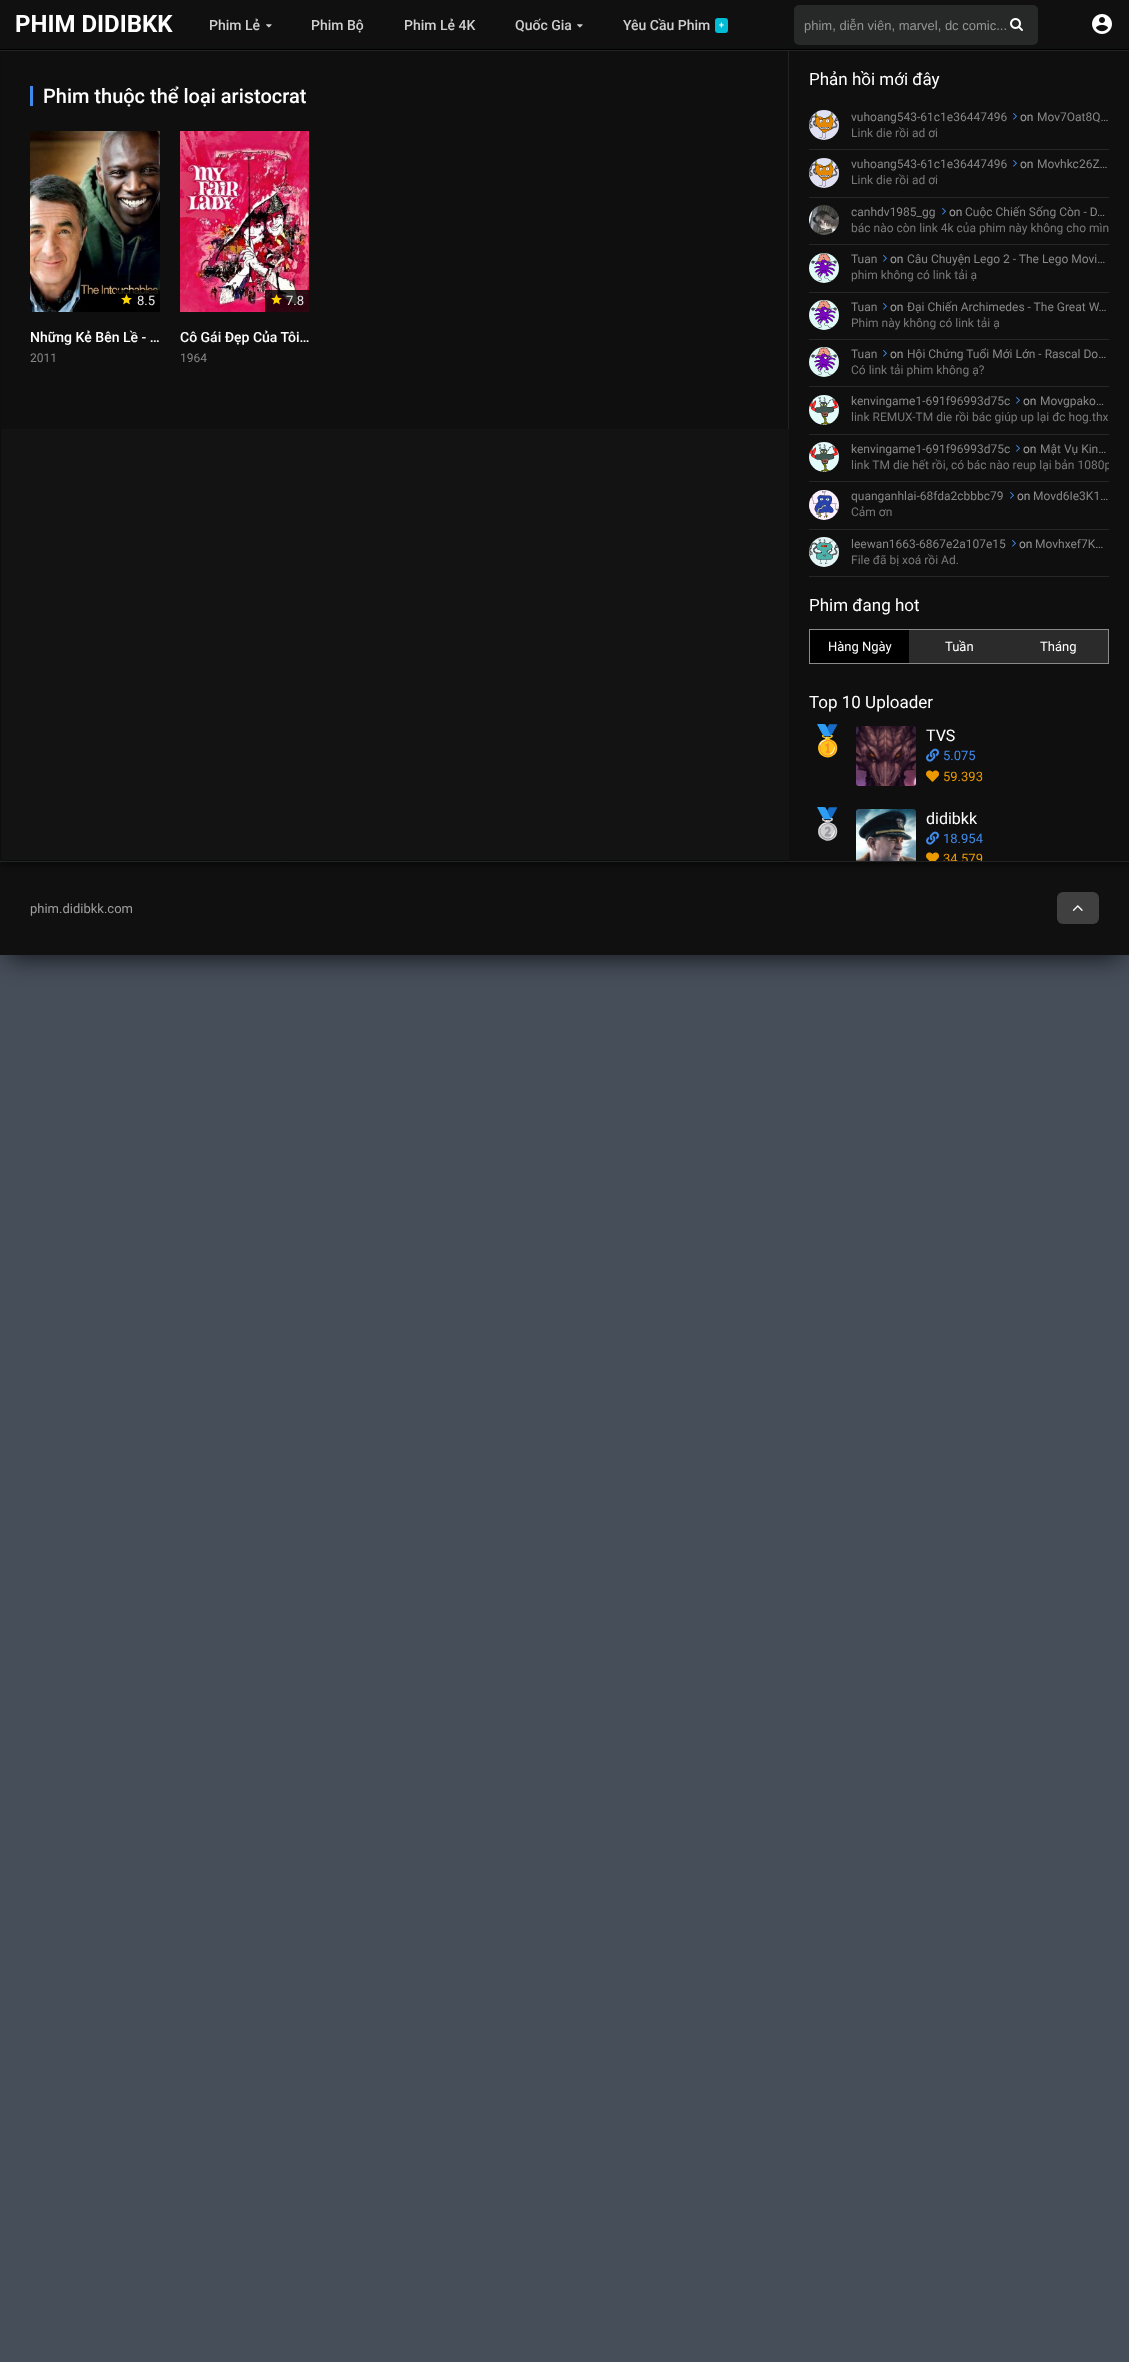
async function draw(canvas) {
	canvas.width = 1129;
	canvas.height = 2362;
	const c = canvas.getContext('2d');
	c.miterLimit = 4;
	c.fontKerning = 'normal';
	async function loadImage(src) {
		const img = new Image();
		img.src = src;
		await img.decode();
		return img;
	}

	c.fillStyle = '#464e5a';
	c.fillRect(0, 0, 1129, 2362);
	c.fillStyle = '#000000b3';
	c.filter = 'blur(12.5px)';
	c.beginPath();
	c.rect(7, 879, 1115, 79);
	c.fill();
	c.filter = 'none';
	c.fillStyle = '#101011';
	c.fillRect(0, 862, 1129, 93);
	c.save();
	c.beginPath();
	c.moveTo(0, 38);
	c.lineTo(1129, 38);
	c.lineTo(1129, 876);
	c.lineTo(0, 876);
	c.closePath();
	c.moveTo(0, 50);
	c.lineTo(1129, 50);
	c.lineTo(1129, 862);
	c.lineTo(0, 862);
	c.closePath();
	c.clip('evenodd');
	c.fillStyle = '#000000b3';
	c.filter = 'blur(4px)';
	c.beginPath();
	c.rect(0, 51, 1129, 812);
	c.fill();
	c.filter = 'none';
	c.restore();
	c.fillStyle = '#0f0f0ffc';
	c.fillRect(0, 0, 1129, 49);
	c.fillStyle = '#000';
	c.fillRect(0, 49, 1129, 1);
	c.font = 'bold 24px Roboto';
	c.fillStyle = '#fff';
	c.fillText('PHIM DIDIBKK', 15, 32);
	c.font = '500 14px Roboto';
	c.fillStyle = '#cfcfcf';
	c.fillText('Phim Lẻ', 209, 30);
	c.drawImage(await loadImage('img1.png'), 266, 24, 6, 4);
	for (const [text, x, y] of [
		['Phim Bộ', 311, 30],
		['Phim Lẻ 4K', 404, 30],
		['Quốc Gia', 515, 30],
	]) {
		c.fillText(text, x, y);
	}
	c.drawImage(await loadImage('img1.png'), 577, 24, 6, 4);
	c.fillText('Yêu Cầu Phim', 623, 30);
	c.fillStyle = '#00bcd4';
	c.beginPath();
	c.roundRect(715, 18, 13, 15, 3);
	c.fill();
	c.font = 'bold 9px Roboto';
	c.fillStyle = '#fff';
	c.fillText('+', 719, 28);
	c.fillStyle = '#272828';
	c.beginPath();
	c.roundRect(794, 5, 244, 40, 5);
	c.fill();
	c.font = '13px Liberation Sans';
	c.fillStyle = '#939494';
	c.fillText('phim, diễn viên, marvel, dc comic...', 804, 30);
	c.drawImage(await loadImage('img2.png'), 1010, 18, 13, 13);
	c.drawImage(await loadImage('img3.png'), 1092, 14, 20, 20);
	c.fillStyle = '#0f0f0fed';
	c.beginPath();
	c.rect(0.5, 51.5, 1128, 809);
	c.fill();
	c.strokeStyle = '#0b0c0c';
	c.stroke();
	for (const [x, y, w, h, color] of [
		[0, 50, 1129, 1, '#232425'],
		[0, 861, 1129, 1, '#232424'],
		[0, 51, 788, 378, '#0f0f0fed'],
		[788, 51, 1, 378, '#222223'],
		[30, 86, 3, 20, '#408bea'],
	]) {
		c.fillStyle = color;
		c.fillRect(x, y, w, h);
	}
	c.font = '500 20px Roboto';
	c.fillStyle = '#fff';
	c.fillText('Phim thuộc thể loại aristocrat', 43, 103);
	c.drawImage(await loadImage('img4.png'), 30, 131, 130, 181);
	c.fillStyle = '#000000cc';
	c.fillRect(115, 290, 45, 10);
	c.drawImage(await loadImage('img5.png'), 121, 294, 11, 11);
	c.font = '13px Roboto';
	c.fillStyle = '#e6e6e6';
	c.fillText('8.5', 137, 305);
	c.font = '500 14px Roboto';
	c.fillStyle = '#fff';
	c.fillText('Những Kẻ Bên Lề - …', 30, 342);
	c.font = '12px Roboto';
	c.fillStyle = '#878787';
	c.fillText('2011', 30, 362);
	c.drawImage(await loadImage('img6.png'), 180, 131, 129, 181);
	c.fillStyle = '#000000cc';
	c.fillRect(265, 290, 44, 22);
	c.drawImage(await loadImage('img7.png'), 271, 294, 11, 11);
	c.font = '13px Roboto';
	c.fillStyle = '#e6e6e6';
	c.fillText('7.8', 286, 305);
	c.font = '500 14px Roboto';
	c.fillStyle = '#fff';
	c.fillText('Cô Gái Đẹp Của Tôi…', 180, 342);
	c.font = '12px Roboto';
	c.fillStyle = '#878787';
	c.fillText('1964', 180, 362);
	c.fillStyle = '#0f0f0fed';
	c.fillRect(789, 51, 340, 810);
	c.font = '17px Roboto';
	c.fillStyle = '#fff';
	c.fillText('Phản hồi mới đây', 809, 85);
	c.fillStyle = '#272727';
	c.fillRect(809, 149, 300, 1);
	c.drawImage(await loadImage('img8.png'), 809, 110, 30, 30);
	c.font = '12px Roboto';
	c.fillStyle = '#878787';
	c.fillText('vuhoang543-61c1e36447496', 851, 121);
	c.drawImage(await loadImage('img9.png'), 1013, 113, 4, 7);
	c.fillStyle = '#9f9fa0';
	c.fillText('on', 1020, 121);
	c.fillStyle = '#878787';
	c.fillText('Mov7Oat8Q…', 1037, 121);
	c.fillStyle = '#787878';
	c.fillText('Link die rồi ad ơi', 851, 137);
	c.fillStyle = '#272727';
	c.fillRect(809, 197, 300, 1);
	c.drawImage(await loadImage('img8.png'), 809, 158, 30, 30);
	c.fillStyle = '#878787';
	c.fillText('vuhoang543-61c1e36447496', 851, 168);
	c.drawImage(await loadImage('img9.png'), 1013, 160, 4, 7);
	c.fillStyle = '#9f9fa0';
	c.fillText('on', 1020, 168);
	c.fillStyle = '#878787';
	c.fillText('Movhkc26Z…', 1037, 168);
	c.fillStyle = '#787878';
	c.fillText('Link die rồi ad ơi', 851, 184);
	c.fillStyle = '#272727';
	c.fillRect(809, 244, 300, 1);
	c.drawImage(await loadImage('img10.png'), 809, 205, 30, 30);
	c.fillStyle = '#878787';
	c.fillText('canhdv1985_gg', 851, 216);
	c.drawImage(await loadImage('img9.png'), 942, 208, 4, 7);
	c.fillStyle = '#9f9fa0';
	c.fillText('on', 949, 216);
	c.fillStyle = '#878787';
	c.fillText('Cuộc Chiến Sống Còn - D…', 965, 216);
	c.fillStyle = '#787878';
	c.fillText('bác nào còn link 4k của phim này không cho mìn', 851, 232);
	c.fillStyle = '#272727';
	c.fillRect(809, 292, 300, 1);
	c.drawImage(await loadImage('img11.png'), 809, 253, 30, 30);
	c.fillStyle = '#878787';
	c.fillText('Tuan', 851, 263);
	c.drawImage(await loadImage('img9.png'), 883, 255, 4, 7);
	c.fillStyle = '#9f9fa0';
	c.fillText('on', 890, 263);
	c.fillStyle = '#878787';
	c.fillText('Câu Chuyện Lego 2 - The Lego Movi…', 907, 263);
	c.fillStyle = '#787878';
	c.fillText('phim không có link tải ạ', 851, 279);
	c.fillStyle = '#272727';
	c.fillRect(809, 339, 300, 1);
	c.drawImage(await loadImage('img12.png'), 809, 300, 30, 30);
	c.fillStyle = '#878787';
	c.fillText('Tuan', 851, 311);
	c.drawImage(await loadImage('img9.png'), 883, 303, 4, 7);
	c.fillStyle = '#9f9fa0';
	c.fillText('on', 890, 311);
	c.fillStyle = '#878787';
	c.fillText('Đại Chiến Archimedes - The Great W…', 907, 311);
	c.fillStyle = '#787878';
	c.fillText('Phim này không có link tải ạ', 851, 327);
	c.fillStyle = '#272727';
	c.fillRect(809, 386, 300, 1);
	c.drawImage(await loadImage('img12.png'), 809, 347, 30, 30);
	c.fillStyle = '#878787';
	c.fillText('Tuan', 851, 358);
	c.drawImage(await loadImage('img9.png'), 883, 350, 4, 7);
	c.fillStyle = '#9f9fa0';
	c.fillText('on', 890, 358);
	c.fillStyle = '#878787';
	c.fillText('Hội Chứng Tuổi Mới Lớn - Rascal Do…', 907, 358);
	c.fillStyle = '#787878';
	c.fillText('Có link tải phim không ạ?', 851, 374);
	c.fillStyle = '#272727';
	c.fillRect(809, 434, 300, 1);
	c.drawImage(await loadImage('img13.png'), 809, 395, 30, 30);
	c.fillStyle = '#878787';
	c.fillText('kenvingame1-691f96993d75c', 851, 405);
	c.drawImage(await loadImage('img9.png'), 1016, 397, 4, 7);
	c.fillStyle = '#9f9fa0';
	c.fillText('on', 1023, 405);
	c.fillStyle = '#878787';
	c.fillText('Movgpako…', 1040, 405);
	c.fillStyle = '#787878';
	c.fillText('link REMUX-TM die rồi bác giúp up lại đc hog.thx', 851, 421);
	c.fillStyle = '#272727';
	c.fillRect(809, 481, 300, 1);
	c.drawImage(await loadImage('img13.png'), 809, 442, 30, 30);
	c.fillStyle = '#878787';
	c.fillText('kenvingame1-691f96993d75c', 851, 453);
	c.drawImage(await loadImage('img9.png'), 1016, 445, 4, 7);
	c.fillStyle = '#9f9fa0';
	c.fillText('on', 1023, 453);
	c.fillStyle = '#878787';
	c.fillText('Mật Vụ Kin…', 1040, 453);
	c.save();
	c.beginPath();
	c.rect(809, 435, 300, 46);
	c.clip();
	c.fillStyle = '#787878';
	c.fillText('link TM die hết rồi, có bác nào reup lại bản 1080p', 851, 469);
	c.restore();
	c.fillStyle = '#272727';
	c.fillRect(809, 529, 300, 1);
	c.drawImage(await loadImage('img14.png'), 809, 490, 30, 30);
	c.fillStyle = '#878787';
	c.fillText('quanganhlai-68fda2cbbbc79', 851, 500);
	c.drawImage(await loadImage('img9.png'), 1010, 492, 4, 7);
	c.fillStyle = '#9f9fa0';
	c.fillText('on', 1017, 500);
	c.fillStyle = '#878787';
	c.fillText('Movd6Ie3K1…', 1033, 500);
	c.fillStyle = '#787878';
	c.fillText('Cảm ơn', 851, 516);
	c.fillStyle = '#272727';
	c.fillRect(809, 576, 300, 1);
	c.drawImage(await loadImage('img15.png'), 809, 537, 30, 30);
	c.fillStyle = '#878787';
	c.fillText('leewan1663-6867e2a107e15', 851, 548);
	c.drawImage(await loadImage('img9.png'), 1012, 540, 4, 7);
	c.fillStyle = '#9f9fa0';
	c.fillText('on', 1019, 548);
	c.fillStyle = '#878787';
	c.fillText('Movhxef7K…', 1035, 548);
	c.fillStyle = '#787878';
	c.fillText('File đã bị xoá rồi Ad.', 851, 564);
	c.font = '17px Roboto';
	c.fillStyle = '#fff';
	c.fillText('Phim đang hot', 809, 611);
	c.fillStyle = '#2b2b2b';
	c.fillRect(909, 630, 199, 33);
	c.strokeStyle = '#8a8a8a';
	c.strokeRect(809.5, 629.5, 299, 34);
	c.fillStyle = '#000';
	c.fillRect(810, 630, 99, 33);
	c.font = '13px Roboto';
	c.fillStyle = '#fff';
	for (const [text, x, y] of [
		['Hàng Ngày', 828, 651],
		['Tuần', 945, 651],
		['Tháng', 1040, 651],
	]) {
		c.fillText(text, x, y);
	}
	c.font = '17px Roboto';
	c.fillText('Top 10 Uploader', 809, 708);
	c.font = '30px Noto Color Emoji';
	c.fillStyle = '#408bea';
	c.fillText('🥇', 809, 751);
	c.drawImage(await loadImage('img16.png'), 856, 726, 60, 60);
	c.font = '16px Roboto';
	c.fillStyle = '#fff';
	c.fillText('TVS', 926, 741);
	c.drawImage(await loadImage('img17.png'), 926, 748, 13, 14);
	c.font = '13px Roboto';
	c.fillStyle = '#408bea';
	c.fillText('5.075', 943, 760);
	c.drawImage(await loadImage('img18.png'), 926, 770, 13, 12);
	c.fillStyle = '#ea9900';
	c.fillText('59.393', 943, 781);
	c.font = '30px Noto Color Emoji';
	c.fillStyle = '#408bea';
	c.fillText('🥈', 809, 834);
	c.drawImage(await loadImage('img19.png'), 856, 809, 60, 52);
	c.font = '16px Roboto';
	c.fillStyle = '#fff';
	c.fillText('didibkk', 926, 824);
	c.drawImage(await loadImage('img17.png'), 926, 831, 13, 14);
	c.font = '13px Roboto';
	c.fillStyle = '#408bea';
	c.fillText('18.954', 943, 843);
	c.drawImage(await loadImage('img20.png'), 926, 852, 13, 9);
	c.save();
	c.beginPath();
	c.rect(789, 51, 340, 810);
	c.clip();
	c.fillStyle = '#ea9900';
	c.fillText('34.579', 943, 863);
	c.restore();
	c.fillStyle = '#9f9fa0';
	c.fillText('phim.didibkk.com', 30, 913);
	c.fillStyle = '#404041';
	c.beginPath();
	c.roundRect(1057, 892, 42, 32, 6);
	c.fill();
	c.drawImage(await loadImage('img21.png'), 1072, 905, 11, 6);
}

draw(document.querySelector('canvas'));
